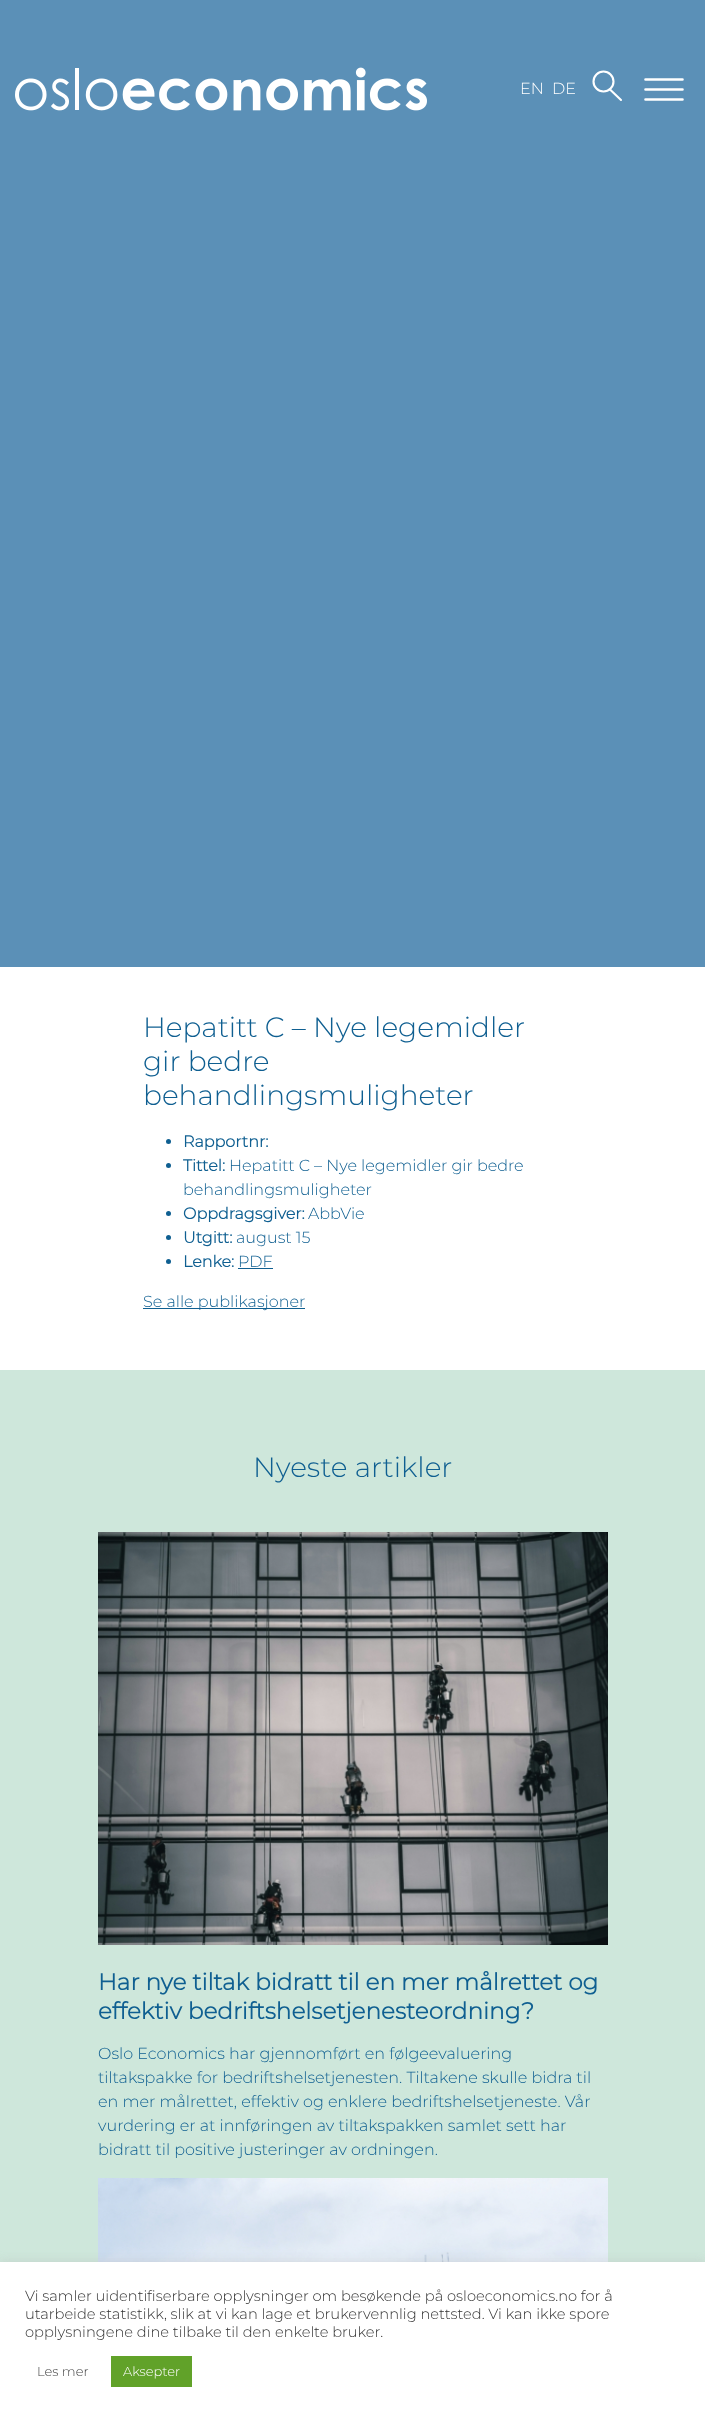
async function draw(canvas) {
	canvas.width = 705;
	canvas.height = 2417;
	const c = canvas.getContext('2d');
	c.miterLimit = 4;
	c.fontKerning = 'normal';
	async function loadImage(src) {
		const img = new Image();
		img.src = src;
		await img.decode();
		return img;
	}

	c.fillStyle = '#fff';
	c.fillRect(0, 0, 705, 2417);
	c.fillStyle = '#5b90b7';
	c.fillRect(0, 0, 705, 967);
	c.drawImage(await loadImage('img1.png'), 15, 67, 412, 44);
	c.font = '100 16px Montserrat';
	c.fillStyle = '#fff';
	c.fillText('EN', 520, 94);
	c.fillText('DE', 552, 94);
	c.beginPath();
	c.arc(603.5, 81.5, 10, 0, 2 * Math.PI);
	c.strokeStyle = '#fff';
	c.lineWidth = 2.1;
	c.stroke();
	c.beginPath();
	c.moveTo(610, 89.5);
	c.lineTo(621, 100);
	c.lineCap = 'round';
	c.stroke();
	c.beginPath();
	c.moveTo(645.5, 79.5);
	c.lineTo(682.5, 79.5);
	c.moveTo(645.5, 89.5);
	c.lineTo(682.5, 89.5);
	c.moveTo(645.5, 99.5);
	c.lineTo(682.5, 99.5);
	c.lineWidth = 2.6;
	c.stroke();
	c.font = '100 28px Montserrat';
	c.fillStyle = '#0f5f91';
	for (const [text, x, y] of [
		['Hepatitt C – Nye legemidler', 143, 1037],
		['gir bedre', 143, 1071],
		['behandlingsmuligheter', 143, 1105],
	]) {
		c.fillText(text, x, y);
	}
	c.beginPath();
	c.arc(168.5, 1141.5, 2.5, 0, 2 * Math.PI);
	c.fill();
	c.font = 'bold 16px Montserrat';
	c.fillText('Rapportnr:', 183, 1147);
	c.beginPath();
	c.arc(168.5, 1165.5, 2.5, 0, 2 * Math.PI);
	c.fill();
	c.fillText('Tittel:', 183, 1171);
	c.font = '100 16px Montserrat';
	c.fillText('Hepatitt C – Nye legemidler gir bedre', 229, 1171);
	c.fillText('behandlingsmuligheter', 183, 1195);
	c.beginPath();
	c.arc(168.5, 1213.5, 2.5, 0, 2 * Math.PI);
	c.fill();
	c.font = 'bold 16px Montserrat';
	c.fillText('Oppdragsgiver:', 183, 1219);
	c.font = '100 16px Montserrat';
	c.fillText('AbbVie', 308, 1219);
	c.beginPath();
	c.arc(168.5, 1237.5, 2.5, 0, 2 * Math.PI);
	c.fill();
	c.font = 'bold 16px Montserrat';
	c.fillText('Utgitt:', 183, 1243);
	c.font = '100 16px Montserrat';
	c.fillText('august 15', 236, 1243);
	c.beginPath();
	c.arc(168.5, 1261.5, 2.5, 0, 2 * Math.PI);
	c.fill();
	c.font = 'bold 16px Montserrat';
	c.fillText('Lenke:', 183, 1267);
	c.font = '100 16px Montserrat';
	c.fillText('PDF', 238, 1267);
	c.fillRect(238, 1268, 35, 1);
	c.fillRect(143, 1308, 162, 1);
	c.fillText('Se alle publikasjoner', 143, 1307);
	c.fillStyle = '#cee7db';
	c.fillRect(0, 1370, 705, 892);
	c.font = '100 28px Montserrat';
	c.fillStyle = '#0f5f91';
	c.fillText('Nyeste artikler', 253, 1477);
	c.drawImage(await loadImage('img2.png'), 98, 1532, 510, 413);
	c.font = 'bold 23.2px Montserrat';
	c.fillText('Har nye tiltak bidratt til en mer målrettet og', 98, 1990);
	c.fillText('effektiv bedriftshelsetjenesteordning?', 98, 2019);
	c.font = '100 16px Montserrat';
	for (const [text, x, y] of [
		['Oslo Economics har gjennomført en følgeevaluering', 98, 2059],
		['tiltakspakke for bedriftshelsetjenesten. Tiltakene skulle bidra til', 98, 2083],
		['en mer målrettet, effektiv og enklere bedriftshelsetjeneste. Vår', 98, 2107],
		['vurdering er at innføringen av tiltakspakken samlet sett har', 98, 2131],
		['bidratt til positive justeringer av ordningen.', 98, 2155],
	]) {
		c.fillText(text, x, y);
	}
	c.drawImage(await loadImage('img3.png'), 98, 2178, 510, 84);
	c.fillStyle = '#acabab4d';
	c.filter = 'blur(5px)';
	c.beginPath();
	c.rect(0, 2261, 705, 155);
	c.fill();
	c.filter = 'none';
	c.fillStyle = '#fff';
	c.fillRect(0, 2262, 705, 155);
	c.font = '100 14.65px Montserrat';
	c.fillStyle = '#333';
	for (const [text, x, y] of [
		['Vi samler uidentifiserbare opplysninger om besøkende på osloeconomics.no for å', 25, 2301],
		['utarbeide statistikk, slik at vi kan lage et brukervennlig nettsted. Vi kan ikke spore', 25, 2319],
		['opplysningene dine tilbake til den enkelte bruker.', 25, 2337],
	]) {
		c.fillText(text, x, y);
	}
	c.font = '100 13px Montserrat';
	c.fillStyle = '#444';
	c.fillText('Les mer', 37, 2376);
	c.fillStyle = '#61a229';
	c.fillRect(111, 2356, 81, 31);
	c.fillStyle = '#fff';
	c.fillText('Aksepter', 123, 2376);
}

draw(document.querySelector('canvas'));
